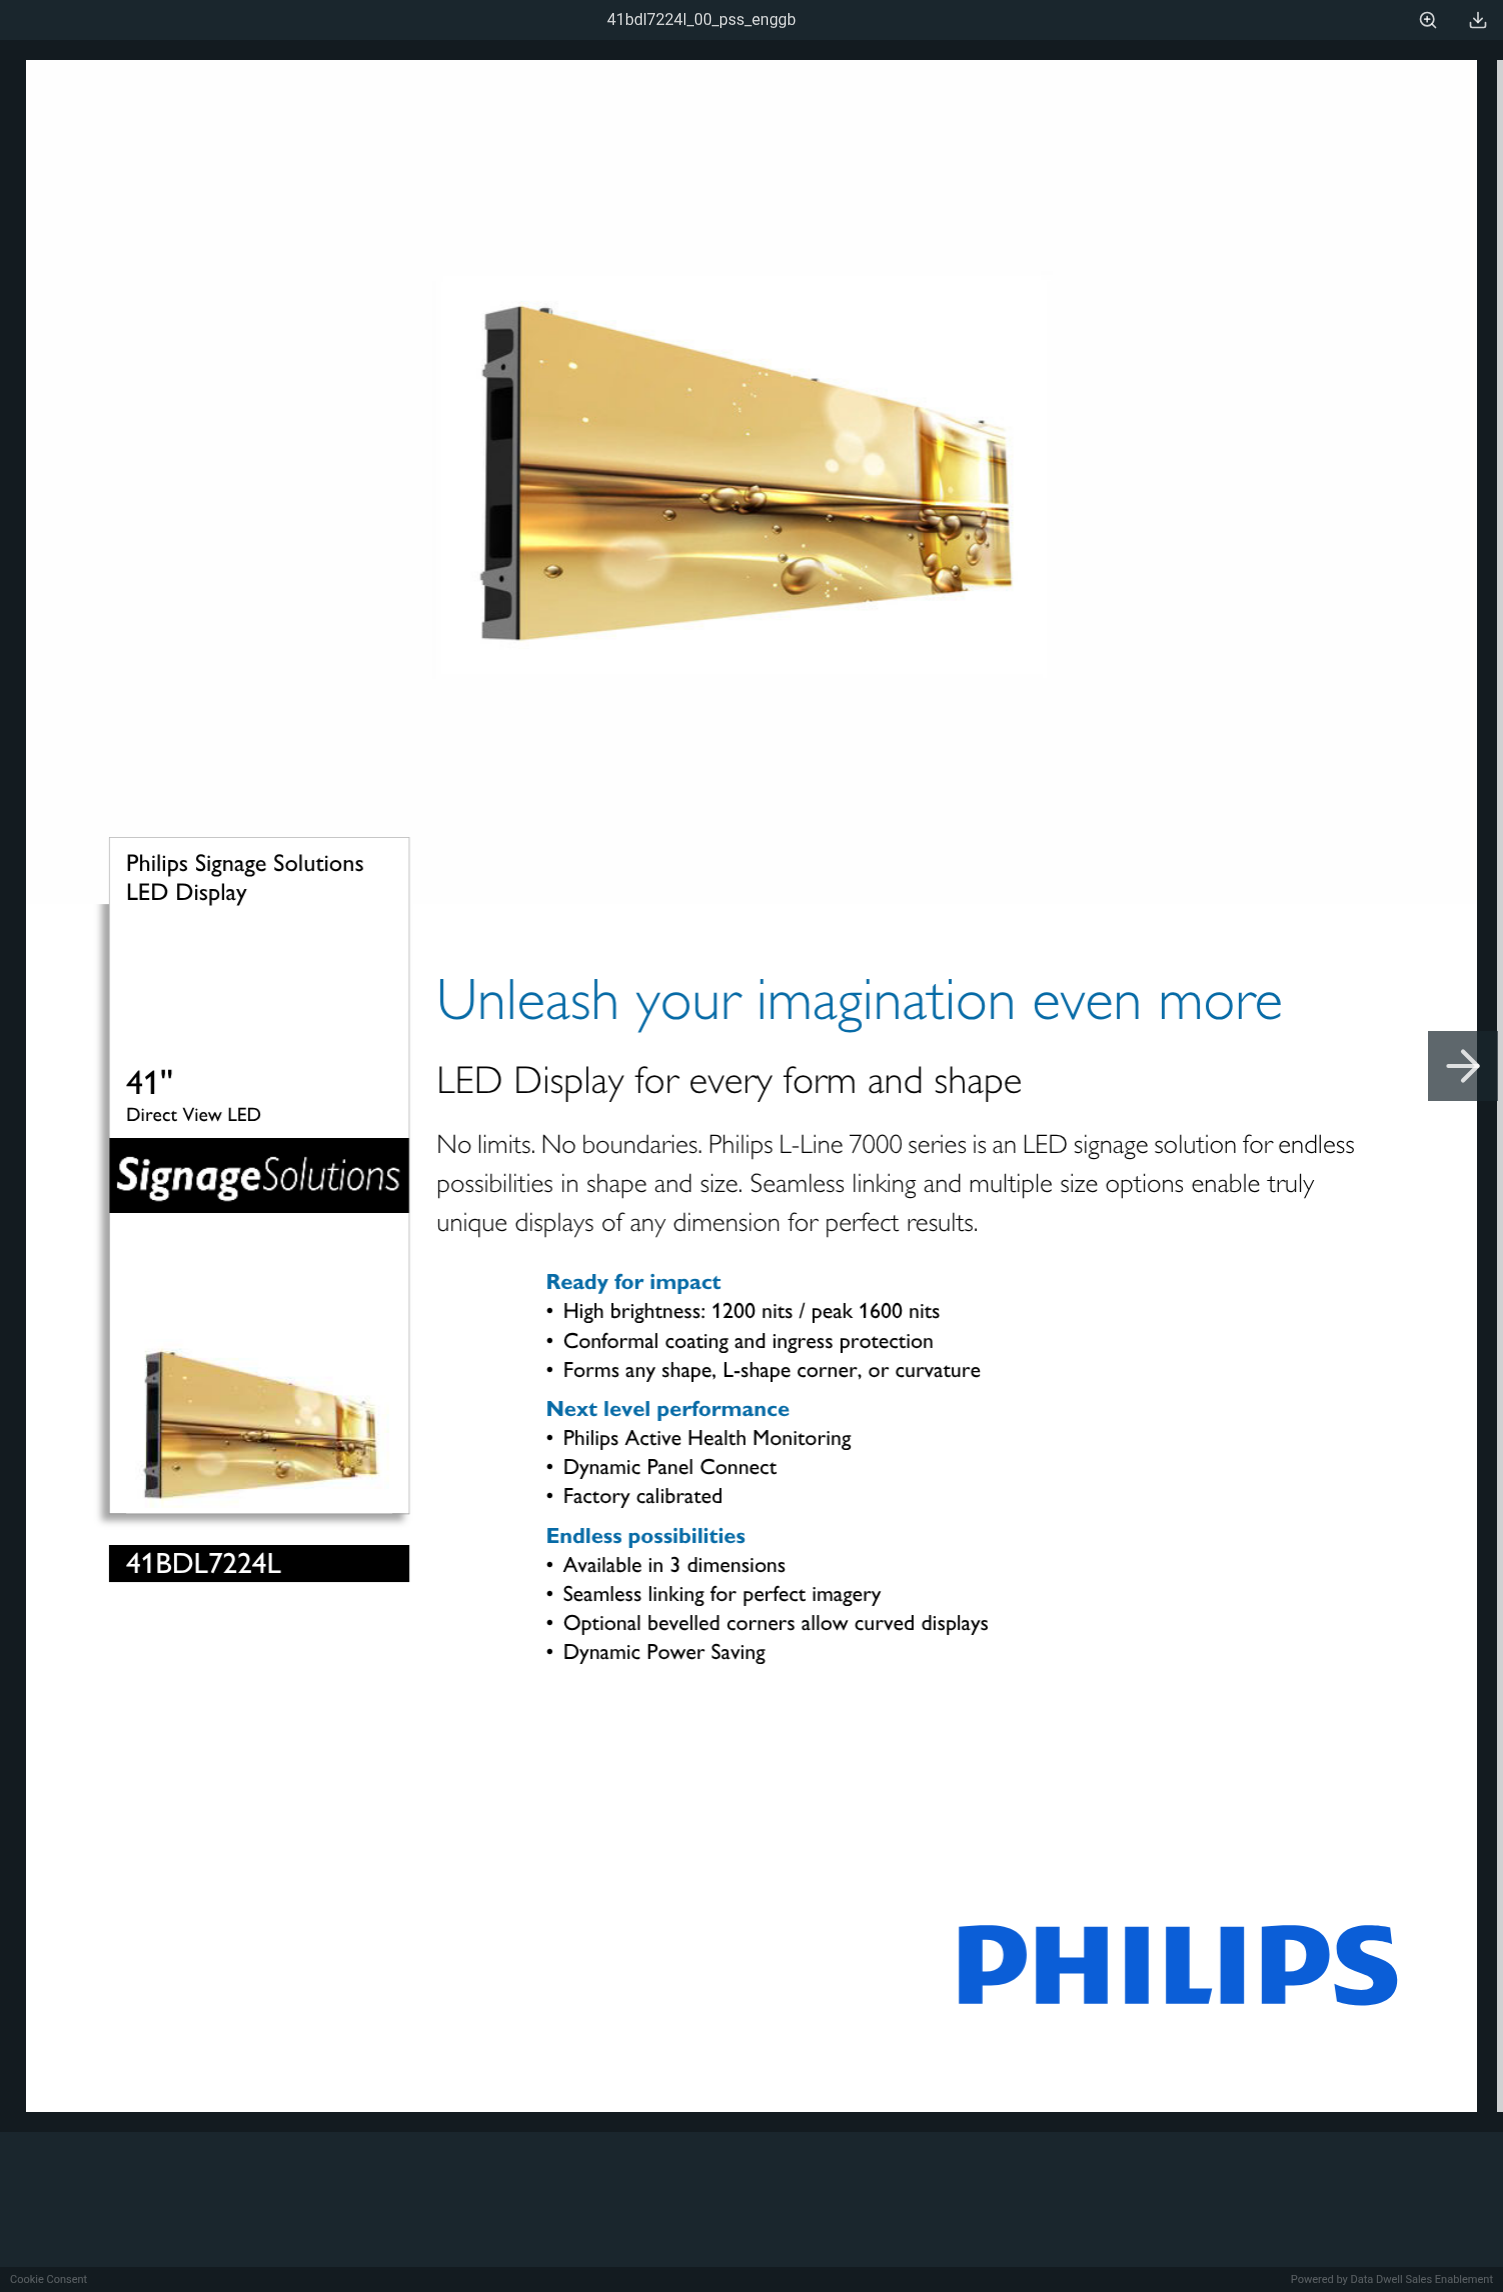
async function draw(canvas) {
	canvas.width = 1503;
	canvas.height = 2292;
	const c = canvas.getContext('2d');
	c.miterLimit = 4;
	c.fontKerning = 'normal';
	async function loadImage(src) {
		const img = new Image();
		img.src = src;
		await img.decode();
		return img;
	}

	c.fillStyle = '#fff';
	c.fillRect(0, 0, 1503, 2292);
	c.drawImage(await loadImage('img1.png'), 0, 0, 1503, 2292);
}

draw(document.querySelector('canvas'));
